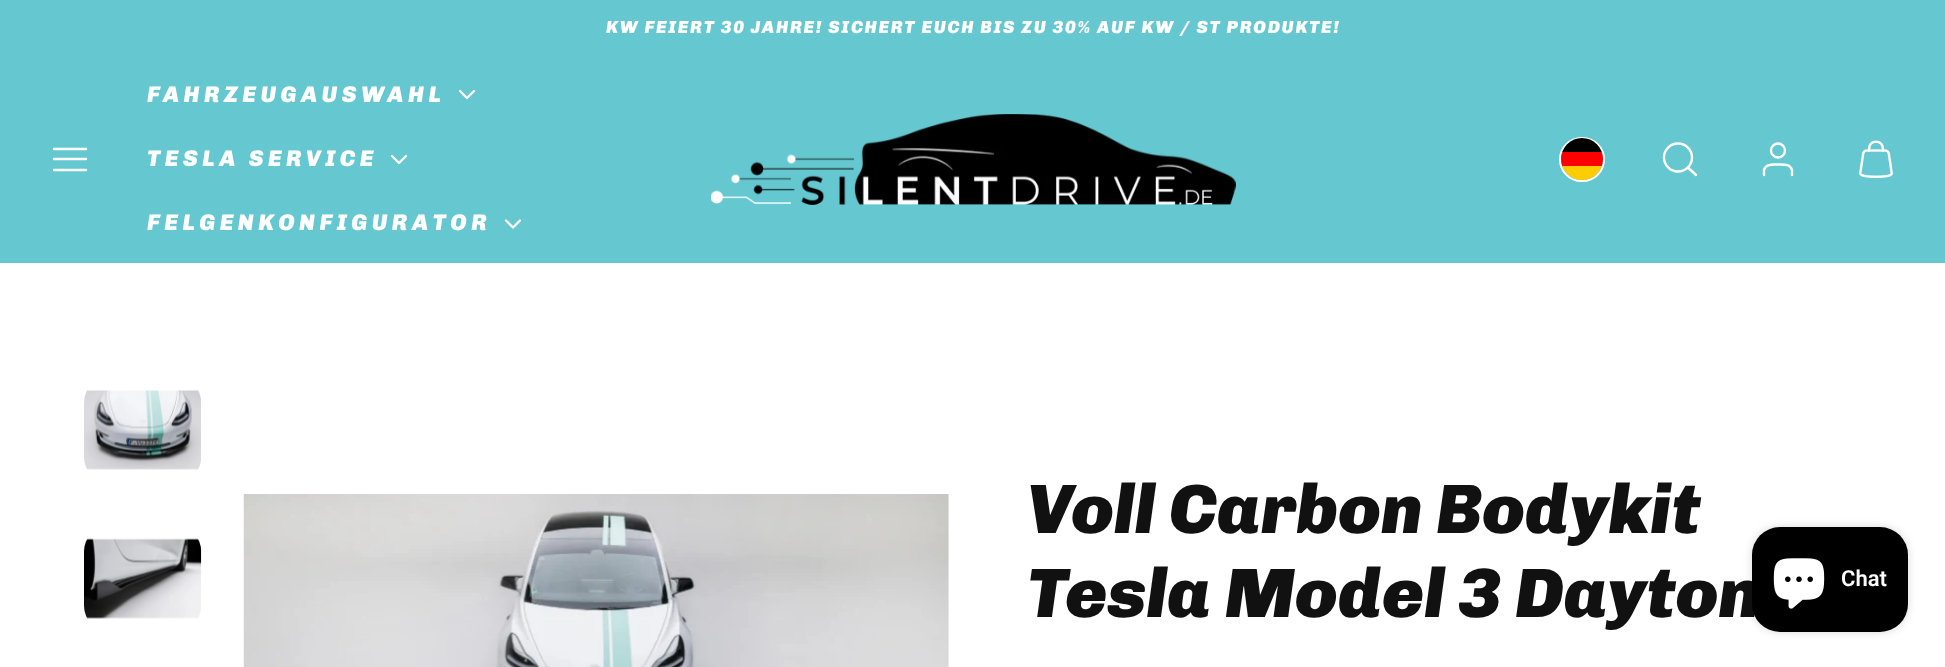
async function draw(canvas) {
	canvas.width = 1945;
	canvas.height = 667;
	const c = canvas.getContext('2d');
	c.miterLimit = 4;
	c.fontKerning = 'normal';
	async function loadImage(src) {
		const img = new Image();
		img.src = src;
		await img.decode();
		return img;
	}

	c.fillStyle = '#fff';
	c.fillRect(0, 0, 1945, 667);
	c.fillStyle = '#65c7d0';
	c.fillRect(0, 0, 1945, 263);
	c.letterSpacing = '1.75px';
	c.font = 'italic 900 17.5px Chivo';
	c.fillStyle = '#fff';
	c.fillText('KW FEIERT 30 JAHRE! SICHERT EUCH BIS ZU 30% AUF KW / ST PRODUKTE!', 606, 33);
	c.beginPath();
	c.moveTo(54, 159);
	c.lineTo(86, 159);
	c.moveTo(54, 149);
	c.lineTo(86, 149);
	c.moveTo(54, 170);
	c.lineTo(86, 170);
	c.strokeStyle = '#fff';
	c.lineWidth = 2.4;
	c.lineCap = 'round';
	c.lineJoin = 'round';
	c.stroke();
	c.letterSpacing = '4.5px';
	c.font = 'italic 900 22.75px Chivo';
	c.fillText('FAHRZEUGAUSWAHL', 147, 102);
	c.beginPath();
	c.moveTo(460, 91);
	c.lineTo(467, 98);
	c.lineTo(474, 91);
	c.stroke();
	c.fillText('TESLA SERVICE', 147, 166);
	c.beginPath();
	c.moveTo(392, 156);
	c.lineTo(399, 163);
	c.lineTo(406, 156);
	c.stroke();
	c.fillText('FELGENKONFIGURATOR', 147, 230);
	c.beginPath();
	c.moveTo(506, 220.5);
	c.lineTo(513, 227.5);
	c.lineTo(520, 220.5);
	c.stroke();
	c.drawImage(await loadImage('img1.png'), 711, 114, 525, 91);
	c.beginPath();
	c.roundRect(1560, 138, 44, 43, 21.5);
	c.lineWidth = 2;
	c.lineJoin = 'miter';
	c.stroke();
	c.save();
	c.beginPath();
	c.roundRect(1561, 138, 42, 42, 21);
	c.clip();
	for (const [x, y, w, h, color] of [
		[1562, 166, 40, 14, '#fc0'],
		[1562, 138, 40, 14, '#000'],
		[1561, 152, 42, 14, '#f00'],
	]) {
		c.fillStyle = color;
		c.fillRect(x, y, w, h);
	}
	c.restore();
	c.beginPath();
	c.arc(1678, 157.5, 14, 0, 2 * Math.PI);
	c.lineWidth = 2.4;
	c.stroke();
	c.beginPath();
	c.moveTo(1696, 175);
	c.lineTo(1688, 167.5);
	c.lineJoin = 'round';
	c.stroke();
	c.beginPath();
	c.moveTo(1792, 175);
	c.lineTo(1792, 170);
	c.bezierCurveTo(1790.5, 163.5, 1783, 164.5, 1778, 164.5);
	c.bezierCurveTo(1773, 164.5, 1765.5, 163.5, 1764, 170);
	c.lineTo(1764, 175);
	c.stroke();
	c.beginPath();
	c.arc(1778, 150.5, 7, 0, 2 * Math.PI);
	c.stroke();
	c.drawImage(await loadImage('img2.png'), 1859, 140, 34, 38);
	c.drawImage(await loadImage('img3.png'), 84, 390, 117, 80);
	c.drawImage(await loadImage('img4.png'), 84, 538, 118, 81);
	c.drawImage(await loadImage('img5.png'), 243, 494, 706, 173);
	c.letterSpacing = '0px';
	c.font = 'italic 900 70px Chivo';
	c.fillStyle = '#111';
	c.fillText('Voll Carbon Bodykit', 1027, 533);
	c.fillText('Tesla Model 3 Dayton', 1027, 617);
	c.fillStyle = '#00000026';
	c.filter = 'blur(4.5px)';
	c.beginPath();
	c.roundRect(1752, 527, 156, 105, 28);
	c.fill();
	c.filter = 'none';
	c.fillStyle = '#000';
	c.beginPath();
	c.roundRect(1752, 527, 156, 105, 28);
	c.fill();
	c.drawImage(await loadImage('img6.png'), 1773, 558, 52, 51);
	c.font = '600 22px Roboto';
	c.fillStyle = '#fff';
	c.fillText('Chat', 1841, 586);
}

draw(document.querySelector('canvas'));
